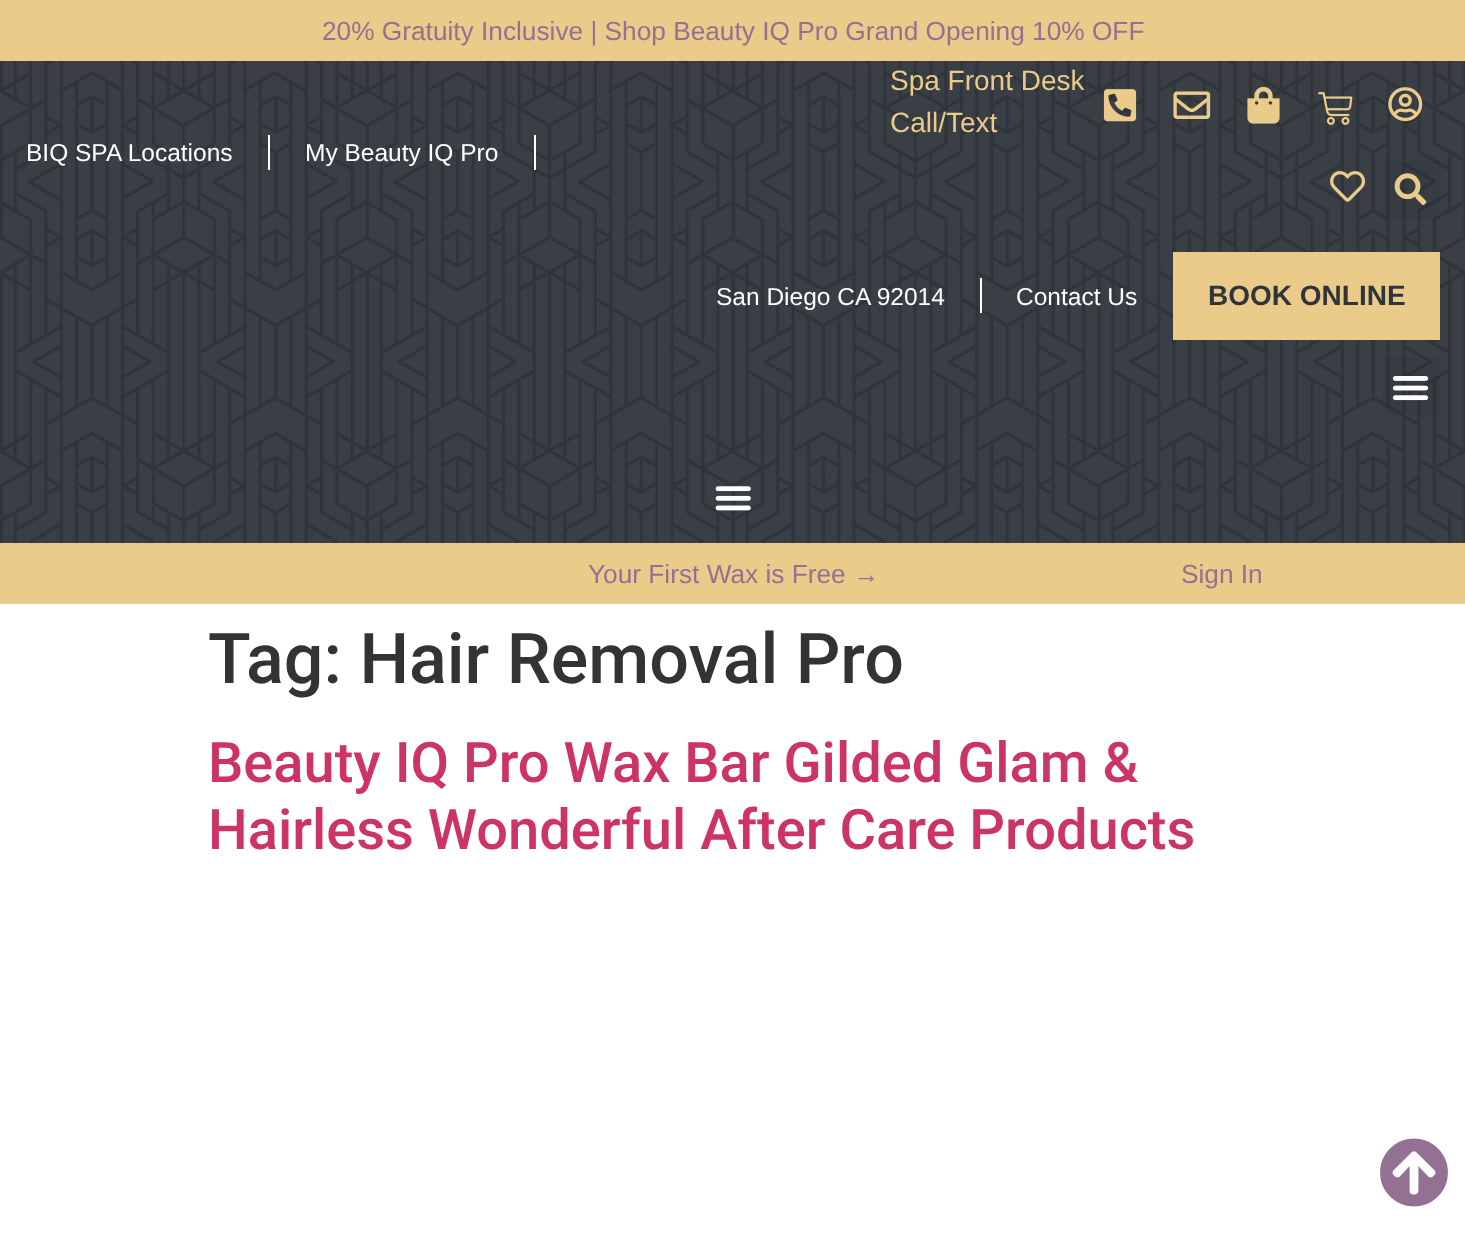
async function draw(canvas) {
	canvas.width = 1465;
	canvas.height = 1236;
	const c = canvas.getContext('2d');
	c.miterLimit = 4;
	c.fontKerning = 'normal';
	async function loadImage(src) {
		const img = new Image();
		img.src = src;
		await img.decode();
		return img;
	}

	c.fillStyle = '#fff';
	c.fillRect(0, 0, 1465, 1236);
	c.fillStyle = '#3a3f46';
	c.fillRect(0, 61, 1465, 482);
	c.drawImage(await loadImage('img1.png'), 0, 61, 1465, 482);
	c.fillStyle = '#eacb8a';
	c.fillRect(0, 0, 1465, 61);
	c.font = '26.25px Liberation Sans';
	c.fillStyle = '#937192';
	c.fillText('20% Gratuity Inclusive | Shop Beauty IQ Pro Grand Opening 10% OFF', 322, 40);
	c.font = '28px Liberation Sans';
	c.fillStyle = '#eacb8a';
	c.fillText('Spa Front Desk', 890, 90);
	c.fillText('Call/Text', 890, 132);
	c.drawImage(await loadImage('img2.png'), 1103, 89, 34, 33);
	c.drawImage(await loadImage('img3.png'), 1173, 91, 38, 28);
	c.drawImage(await loadImage('img4.png'), 1247, 86, 33, 38);
	c.drawImage(await loadImage('img5.png'), 1318, 92, 35, 33);
	c.drawImage(await loadImage('img6.png'), 1388, 87, 35, 35);
	c.drawImage(await loadImage('img7.png'), 1330, 171, 36, 31);
	c.fillStyle = '#0000000d';
	c.fillRect(1383, 161, 57, 58);
	c.drawImage(await loadImage('img8.png'), 1394, 173, 33, 33);
	c.fillStyle = '#fff';
	c.fillRect(268, 135, 2, 35);
	c.font = '24.5px Liberation Sans';
	c.fillText('BIQ SPA Locations', 26, 161);
	c.fillRect(534, 135, 2, 35);
	c.fillText('My Beauty IQ Pro', 305, 161);
	c.fillText('San Diego CA 92014', 716, 305);
	c.fillRect(980, 278, 2, 35);
	c.fillText('Contact Us', 1016, 305);
	c.fillStyle = '#eacb8a';
	c.fillRect(1173, 252, 267, 88);
	c.font = 'bold 28px Liberation Sans';
	c.fillStyle = '#30353c';
	c.fillText('BOOK ONLINE', 1208, 305);
	c.fillStyle = '#0000000d';
	c.fillRect(1383, 357, 57, 58);
	c.drawImage(await loadImage('img9.png'), 1392, 376, 37, 25);
	c.drawImage(await loadImage('img10.png'), 715, 486, 36, 25);
	c.fillStyle = '#eacb8a';
	c.fillRect(0, 543, 1465, 61);
	c.font = '26.25px Liberation Sans';
	c.fillStyle = '#937192';
	c.fillText('Your First Wax is Free →', 588, 583);
	c.fillText('Sign In', 1181, 583);
	c.font = '500 70px Roboto';
	c.fillStyle = '#333';
	c.fillText('Tag: Hair Removal Pro', 208, 683);
	c.font = '500 56px Roboto';
	c.fillStyle = '#c36';
	c.fillText('Beauty IQ Pro Wax Bar Gilded Glam &', 208, 782);
	c.fillText('Hairless Wonderful After Care Products', 208, 849);
	c.drawImage(await loadImage('img11.png'), 1380, 1138, 68, 69);
}

draw(document.querySelector('canvas'));
